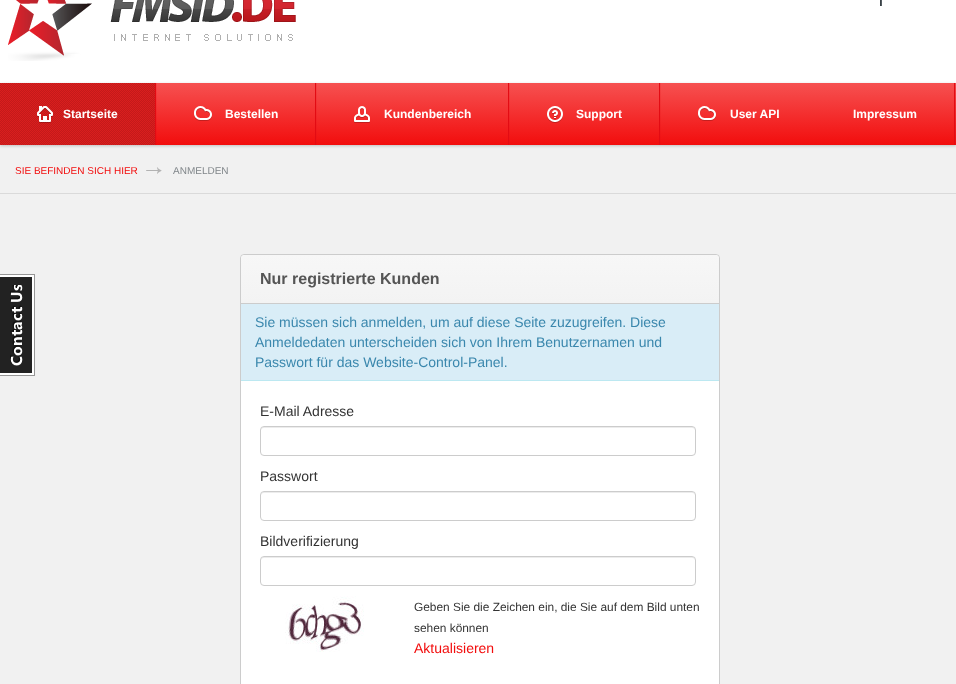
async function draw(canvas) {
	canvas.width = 956;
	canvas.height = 684;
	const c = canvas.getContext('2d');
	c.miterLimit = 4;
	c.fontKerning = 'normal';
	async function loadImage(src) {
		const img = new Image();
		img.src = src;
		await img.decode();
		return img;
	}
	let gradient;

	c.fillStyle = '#f1f1f1';
	c.fillRect(0, 0, 956, 684);
	c.fillStyle = '#fff';
	c.fillRect(0, 0, 956, 83);
	c.drawImage(await loadImage('img1.png'), 8, 0, 288, 61);
	c.drawImage(await loadImage('img2.png'), 880, 0, 2, 6);
	c.fillStyle = '#00000033';
	c.filter = 'blur(1.5px)';
	c.beginPath();
	c.rect(0, 84, 956, 62);
	c.fill();
	c.filter = 'none';
	gradient = c.createLinearGradient(478, 83, 478, 145);
	gradient.addColorStop(0, '#f65151');
	gradient.addColorStop(1, '#f20d0d');
	c.fillStyle = gradient;
	c.fillRect(156, 83, 800, 62);
	c.fillStyle = '#da1e1e';
	c.fillRect(0, 83, 155, 62);
	c.drawImage(await loadImage('img3.png'), 0, 83, 155, 62);
	c.drawImage(await loadImage('img4.png'), 37, 106, 16, 17);
	c.font = 'bold 12px Liberation Sans';
	c.fillStyle = '#fff';
	c.fillText('Startseite', 63, 118);
	c.drawImage(await loadImage('img5.png'), 155, 83, 2, 62);
	c.drawImage(await loadImage('img6.png'), 194, 106, 18, 15);
	c.fillText('Bestellen', 225, 118);
	c.drawImage(await loadImage('img5.png'), 315, 83, 2, 62);
	c.drawImage(await loadImage('img7.png'), 354, 106, 16, 17);
	c.fillText('Kundenbereich', 384, 118);
	c.drawImage(await loadImage('img5.png'), 508, 83, 2, 62);
	c.drawImage(await loadImage('img8.png'), 547, 106, 16, 17);
	c.fillText('Support', 576, 118);
	c.drawImage(await loadImage('img5.png'), 659, 83, 2, 62);
	c.drawImage(await loadImage('img6.png'), 698, 106, 18, 15);
	c.fillText('User API', 730, 118);
	c.fillText('Impressum', 853, 118);
	c.drawImage(await loadImage('img5.png'), 954, 83, 2, 62);
	c.fillStyle = '#dadada';
	c.fillRect(0, 193, 956, 1);
	c.font = '10px Liberation Sans';
	c.fillStyle = '#f20d0d';
	c.fillText('SIE BEFINDEN SICH HIER', 15, 174);
	c.drawImage(await loadImage('img9.png'), 146, 167, 16, 7);
	c.fillStyle = '#80868a';
	c.fillText('ANMELDEN', 173, 174);
	c.drawImage(await loadImage('img10.png'), 0, 274, 35, 102);
	c.fillStyle = '#fff';
	c.beginPath();
	c.roundRect(240.5, 254.5, 479, 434, 3.5);
	c.fill();
	c.strokeStyle = '#ccc';
	c.stroke();
	gradient = c.createLinearGradient(480, 255, 480, 303);
	gradient.addColorStop(0, '#f7f7f7');
	gradient.addColorStop(1, '#f3f3f3');
	c.fillStyle = gradient;
	c.beginPath();
	c.roundRect(241, 255, 478, 48, [4, 4, 0, 0]);
	c.fill();
	c.fillStyle = '#ccc';
	c.fillRect(241, 303, 478, 1);
	c.font = 'bold 16px Liberation Sans';
	c.fillStyle = '#555';
	c.fillText('Nur registrierte Kunden', 260, 284);
	c.fillStyle = '#d9edf7';
	c.fillRect(241, 304, 478, 76);
	c.fillStyle = '#bce8f1';
	c.fillRect(241, 380, 478, 1);
	c.font = '14px Liberation Sans';
	c.fillStyle = '#3a87ad';
	for (const [text, x, y] of [
		['Sie müssen sich anmelden, um auf diese Seite zuzugreifen. Diese', 255, 327],
		['Anmeldedaten unterscheiden sich von Ihrem Benutzernamen und', 255, 347],
		['Passwort für das Website-Control-Panel.', 255, 367],
	]) {
		c.fillText(text, x, y);
	}
	c.fillStyle = '#333';
	c.fillText('E-Mail Adresse', 260, 416);
	c.fillStyle = '#ececec';
	c.beginPath();
	c.moveTo(264, 428);
	c.lineTo(692, 428);
	c.bezierCurveTo(694, 428, 695, 429, 695, 431);
	c.bezierCurveTo(695, 429, 694, 427, 692, 427);
	c.lineTo(264, 427);
	c.bezierCurveTo(262, 427, 261, 429, 261, 431);
	c.bezierCurveTo(261, 429, 262, 428, 264, 428);
	c.closePath();
	c.fill();
	c.beginPath();
	c.roundRect(260.5, 426.5, 435, 29, 3.5);
	c.stroke();
	c.fillStyle = '#333';
	c.fillText('Passwort', 260, 481);
	c.fillStyle = '#ececec';
	c.beginPath();
	c.moveTo(264, 493);
	c.lineTo(692, 493);
	c.bezierCurveTo(694, 493, 695, 494, 695, 496);
	c.bezierCurveTo(695, 494, 694, 492, 692, 492);
	c.lineTo(264, 492);
	c.bezierCurveTo(262, 492, 261, 494, 261, 496);
	c.bezierCurveTo(261, 494, 262, 493, 264, 493);
	c.closePath();
	c.fill();
	c.beginPath();
	c.roundRect(260.5, 491.5, 435, 29, 3.5);
	c.stroke();
	c.fillStyle = '#333';
	c.fillText('Bildverifizierung', 260, 546);
	c.fillStyle = '#ececec';
	c.beginPath();
	c.moveTo(264, 558);
	c.lineTo(692, 558);
	c.bezierCurveTo(694, 558, 695, 559, 695, 561);
	c.bezierCurveTo(695, 559, 694, 557, 692, 557);
	c.lineTo(264, 557);
	c.bezierCurveTo(262, 557, 261, 559, 261, 561);
	c.bezierCurveTo(261, 559, 262, 558, 264, 558);
	c.closePath();
	c.fill();
	c.beginPath();
	c.roundRect(260.5, 556.5, 435, 29, 3.5);
	c.stroke();
	c.drawImage(await loadImage('img11.png'), 285, 596, 79, 56);
	c.font = '11.9px Liberation Sans';
	c.fillStyle = '#333';
	c.fillText('Geben Sie die Zeichen ein, die Sie auf dem Bild unten', 414, 611);
	c.fillText('sehen können', 414, 632);
	c.font = '14px Liberation Sans';
	c.fillStyle = '#f20d0d';
	c.fillText('Aktualisieren', 414, 653);
}

draw(document.querySelector('canvas'));
